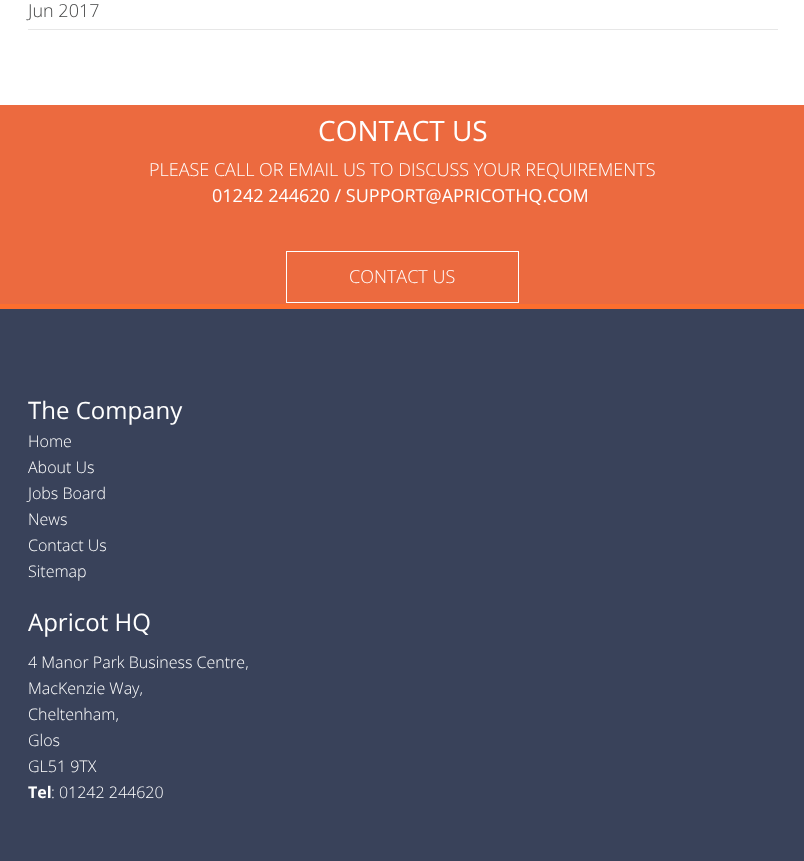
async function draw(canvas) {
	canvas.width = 804;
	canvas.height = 861;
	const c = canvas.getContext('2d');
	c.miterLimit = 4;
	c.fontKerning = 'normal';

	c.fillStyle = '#fff';
	c.fillRect(0, 0, 804, 861);
	c.fillStyle = '#e7e7e7';
	c.fillRect(28, 29, 750, 1);
	c.font = '300 18px Open Sans';
	c.fillStyle = '#444545';
	c.fillText('Jun 2017', 28, 17);
	c.fillStyle = '#ec6a3f';
	c.fillRect(0, 105, 804, 199);
	c.font = '28px Open Sans';
	c.fillStyle = '#fff';
	c.fillText('CONTACT US', 318, 141);
	c.font = '300 18px Open Sans';
	c.fillText('PLEASE CALL OR EMAIL US TO DISCUSS YOUR REQUIREMENTS', 149, 176);
	c.font = '18px Open Sans';
	c.fillText('01242 244620 / SUPPORT@APRICOTHQ.COM', 212, 202);
	c.strokeStyle = '#fff';
	c.strokeRect(286.5, 251.5, 232, 51);
	c.font = '300 18px Open Sans';
	c.fillText('CONTACT US', 349, 283);
	c.fillStyle = '#39425a';
	c.fillRect(0, 309, 804, 552);
	c.fillStyle = '#fd6e2e';
	c.fillRect(0, 304, 804, 5);
	c.font = '24px Open Sans';
	c.fillStyle = '#fff';
	c.fillText('The Company', 28, 419);
	c.font = '300 16px Open Sans';
	for (const [text, x, y] of [
		['Home', 28, 447],
		['About Us', 28, 473],
		['Jobs Board', 28, 499],
		['News', 28, 525],
		['Contact Us', 28, 551],
		['Sitemap', 28, 577],
	]) {
		c.fillText(text, x, y);
	}
	c.font = '24px Open Sans';
	c.fillText('Apricot HQ', 28, 631);
	c.font = '300 16px Open Sans';
	for (const [text, x, y] of [
		['4 Manor Park Business Centre,', 28, 668],
		['MacKenzie Way,', 28, 694],
		['Cheltenham,', 28, 720],
		['Glos', 28, 746],
		['GL51 9TX', 28, 772],
	]) {
		c.fillText(text, x, y);
	}
	c.font = 'bold 16px Open Sans';
	c.fillText('Tel', 28, 798);
	c.font = '300 16px Open Sans';
	c.fillText(': 01242 244620', 51, 798);
}

draw(document.querySelector('canvas'));
